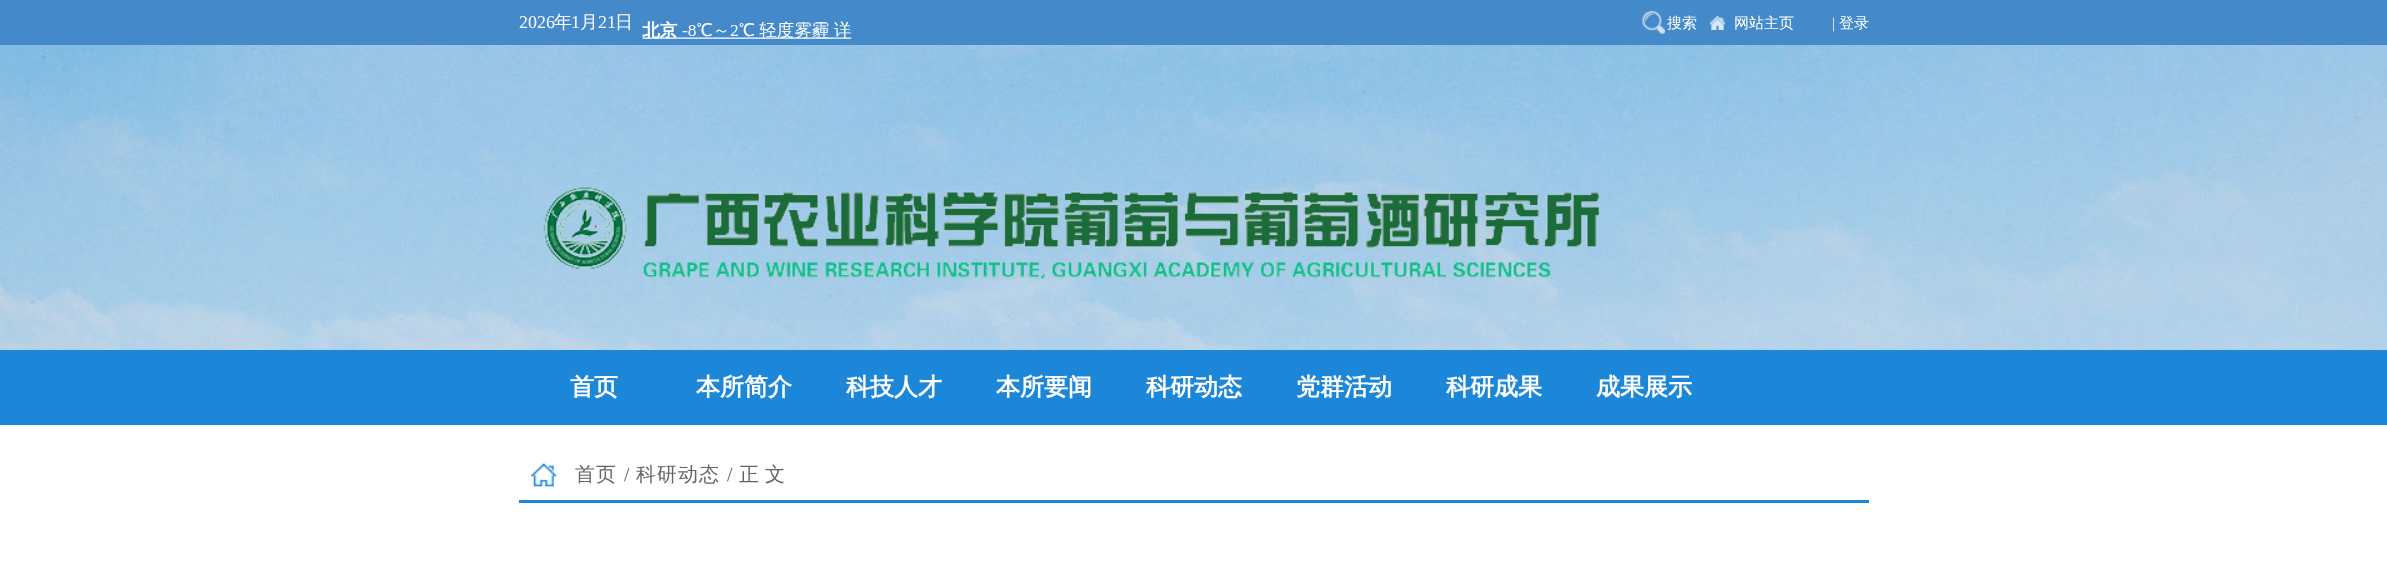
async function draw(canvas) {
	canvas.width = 2387;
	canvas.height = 575;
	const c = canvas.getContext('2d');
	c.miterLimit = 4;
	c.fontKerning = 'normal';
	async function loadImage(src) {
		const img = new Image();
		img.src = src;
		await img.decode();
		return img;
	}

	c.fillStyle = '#fff';
	c.fillRect(0, 0, 2387, 575);
	c.drawImage(await loadImage('img1.png'), 0, 45, 2387, 305);
	c.fillStyle = '#448aca';
	c.fillRect(0, 0, 2387, 45);
	c.font = '18px Liberation Serif';
	c.fillStyle = '#fff';
	c.fillText('2026', 519, 28);
	c.font = '500 18px WenQuanYi Zen Hei';
	c.fillText('年', 554, 28);
	c.font = '18px Liberation Serif';
	c.fillText('1', 571, 28);
	c.font = '500 18px WenQuanYi Zen Hei';
	c.fillText('月', 580, 28);
	c.font = '18px Liberation Serif';
	c.fillText('21', 598, 28);
	c.font = '500 18px WenQuanYi Zen Hei';
	c.fillText('日', 615, 28);
	c.drawImage(await loadImage('img2.png'), 642, 20, 210, 19);
	c.drawImage(await loadImage('img3.png'), 1642, 11, 23, 23);
	c.font = '500 15px WenQuanYi Zen Hei';
	c.fillText('搜索', 1667, 28);
	c.drawImage(await loadImage('img4.png'), 1710, 16, 15, 14);
	c.fillText('网站主页', 1734, 28);
	c.font = '15px Liberation Serif';
	c.fillText('|', 1832, 28);
	c.font = '500 15px WenQuanYi Zen Hei';
	c.fillText('登录', 1839, 28);
	c.drawImage(await loadImage('img5.png'), 543, 186, 1056, 149);
	c.fillStyle = '#1c86d8';
	c.fillRect(0, 350, 2387, 75);
	c.font = 'bold 24px WenQuanYi Zen Hei';
	c.fillStyle = '#fff';
	for (const [text, x, y] of [
		['首页', 570, 395],
		['本所简介', 696, 395],
		['科技人才', 846, 395],
		['本所要闻', 996, 395],
		['科研动态', 1146, 395],
		['党群活动', 1296, 395],
		['科研成果', 1446, 395],
		['成果展示', 1596, 395],
	]) {
		c.fillText(text, x, y);
	}
	c.drawImage(await loadImage('img6.png'), 531, 463, 26, 24);
	c.fillStyle = '#1c86d8';
	c.fillRect(519, 500, 1350, 3);
	c.letterSpacing = '1px';
	c.font = '500 20px WenQuanYi Zen Hei';
	c.fillStyle = '#656565';
	c.fillText('首页', 575, 481);
	c.letterSpacing = '6px';
	c.font = '20px Liberation Serif';
	c.fillText('/', 624, 481);
	c.letterSpacing = '1px';
	c.font = '500 20px WenQuanYi Zen Hei';
	c.fillText('科研动态', 636, 481);
	c.letterSpacing = '6px';
	c.font = '20px Liberation Serif';
	c.fillText('/', 727, 481);
	c.font = '500 20px WenQuanYi Zen Hei';
	c.fillText('正文', 739, 481);
}

draw(document.querySelector('canvas'));
